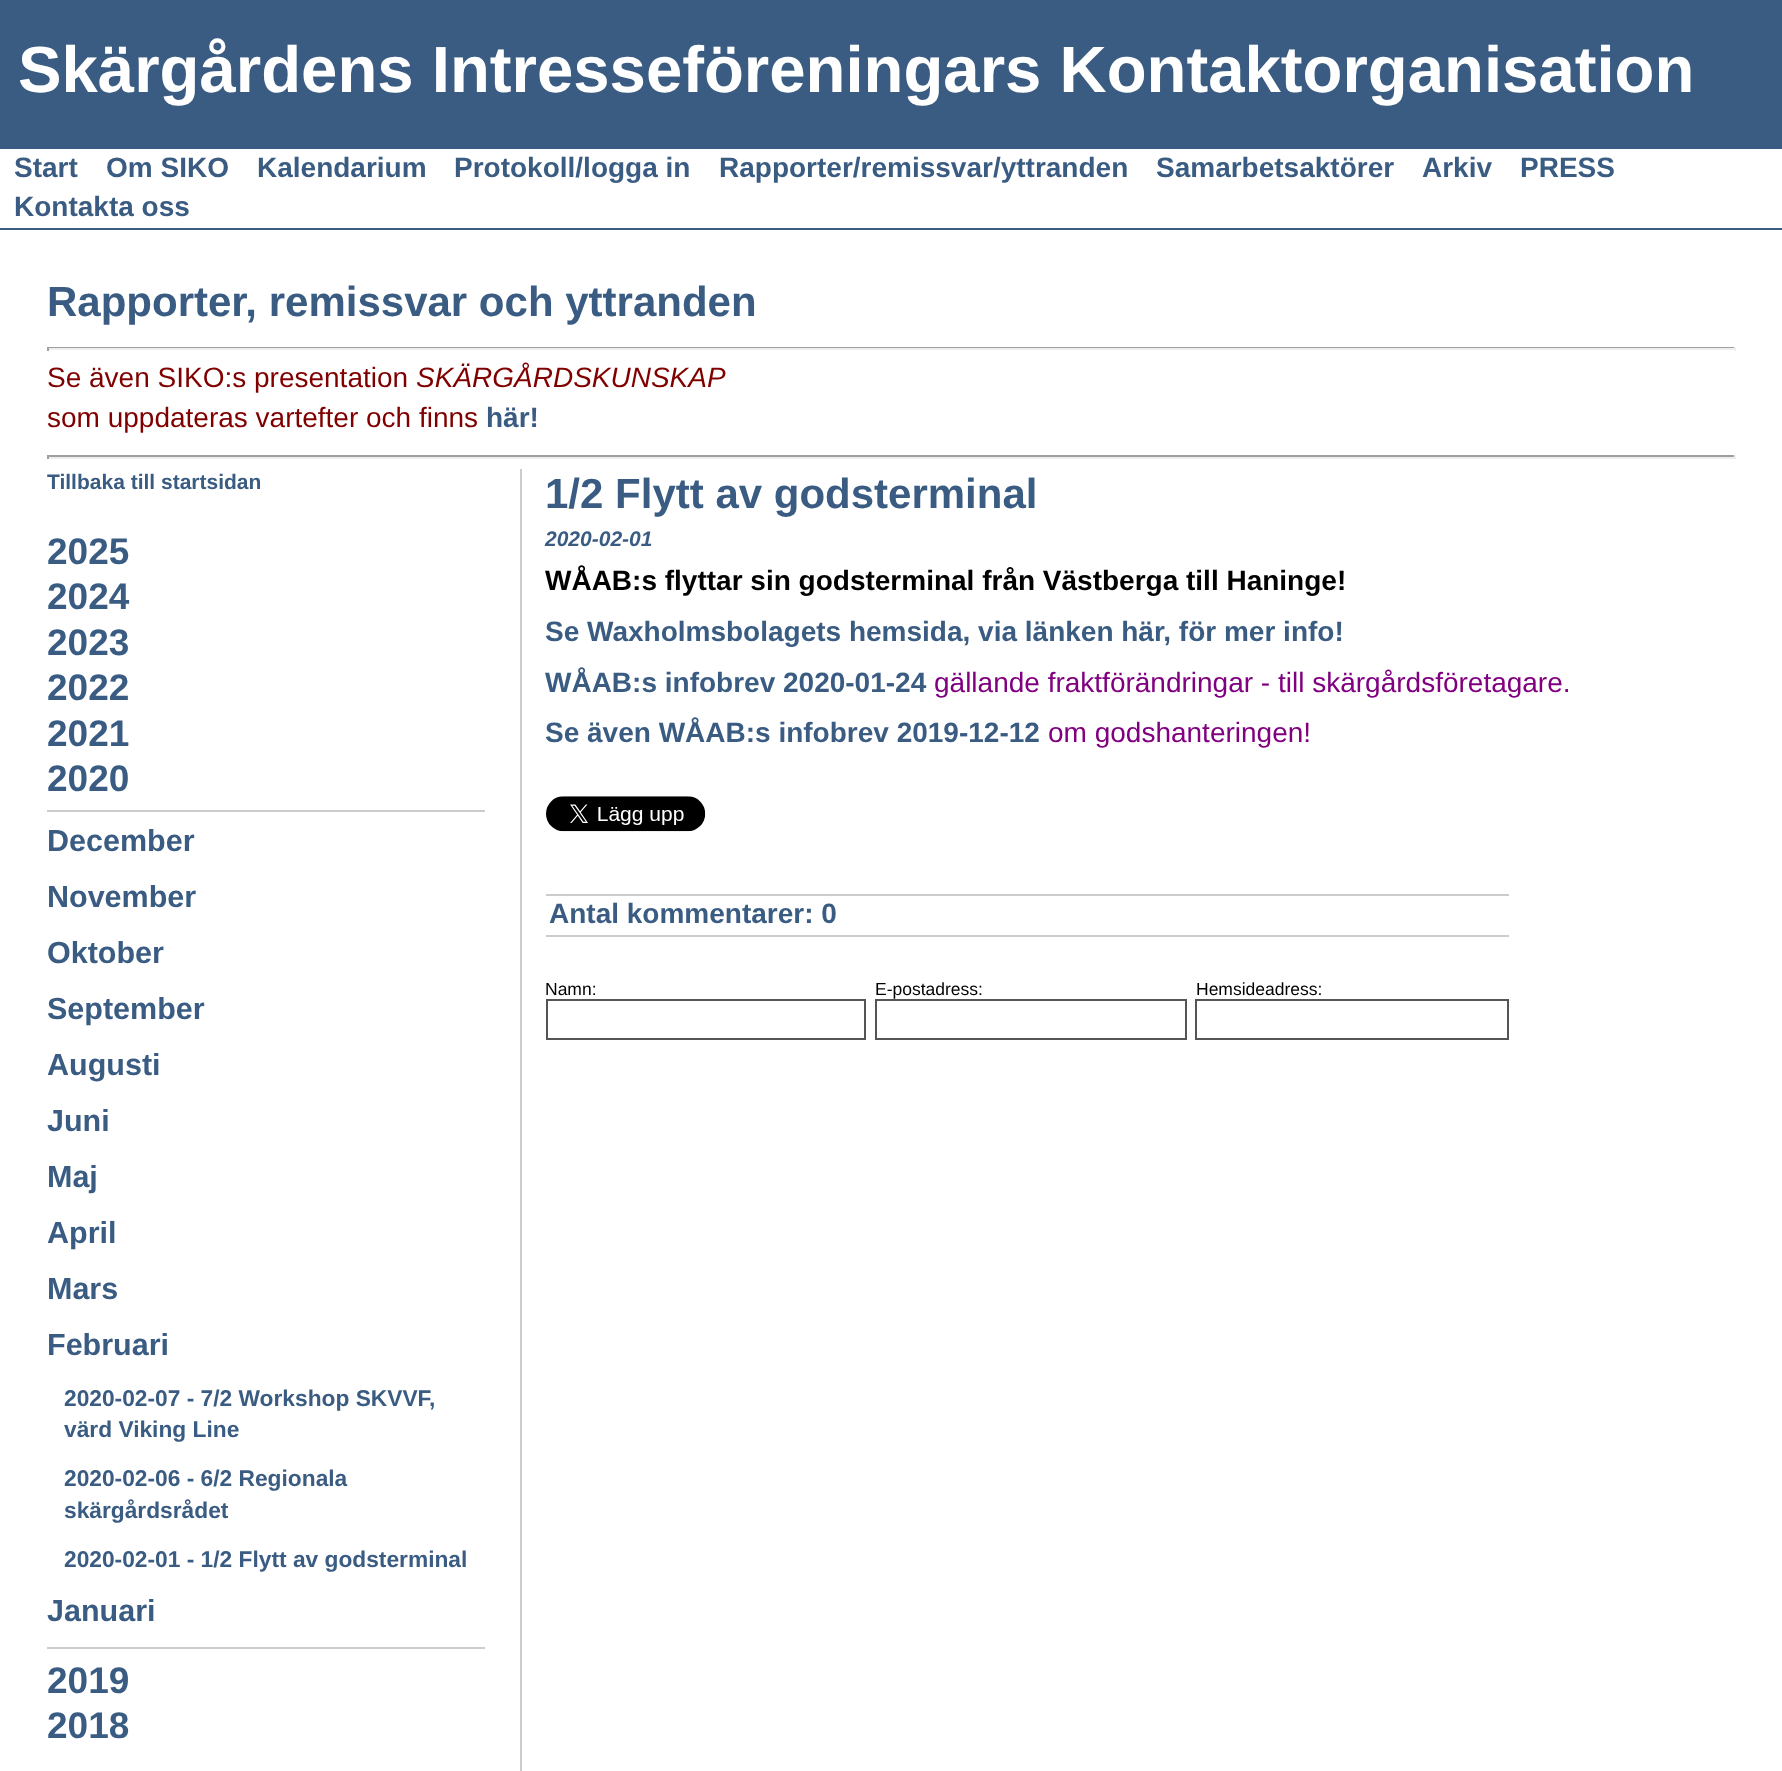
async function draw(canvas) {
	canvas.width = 1782;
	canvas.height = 1771;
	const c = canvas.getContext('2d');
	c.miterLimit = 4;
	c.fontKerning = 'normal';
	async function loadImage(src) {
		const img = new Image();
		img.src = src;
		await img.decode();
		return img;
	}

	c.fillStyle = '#fff';
	c.fillRect(0, 0, 1782, 1771);
	c.fillStyle = '#3a5c82';
	c.fillRect(0, 0, 1782, 149);
	c.font = 'bold 65.3px Liberation Sans';
	c.fillStyle = '#fff';
	c.fillText('Skärgårdens Intresseföreningars Kontaktorganisation', 18, 92);
	c.fillStyle = '#3a5c82';
	c.fillRect(0, 228, 1782, 2);
	c.font = 'bold 28px Liberation Sans';
	for (const [text, x, y] of [
		['Start', 14, 177],
		['Om SIKO', 106, 177],
		['Kalendarium', 257, 177],
		['Protokoll/logga in', 454, 177],
		['Rapporter/remissvar/yttranden', 719, 177],
		['Samarbetsaktörer', 1156, 177],
		['Arkiv', 1422, 177],
		['PRESS', 1520, 177],
		['Kontakta oss', 14, 216],
	]) {
		c.fillText(text, x, y);
	}
	c.font = 'bold 42px Liberation Sans';
	c.fillText('Rapporter, remissvar och yttranden', 47, 316);
	for (const [x, y, w, h, color] of [
		[47, 347, 1689, 1, '#9f9f9f'],
		[1734, 347, 2, 4, '#eee'],
		[47, 348, 1689, 2, '#eee'],
		[47, 347, 2, 4, '#9f9f9f'],
	]) {
		c.fillStyle = color;
		c.fillRect(x, y, w, h);
	}
	c.font = '28px Liberation Sans';
	c.fillStyle = '#800000';
	c.fillText('Se även SIKO:s presentation', 47, 387);
	c.font = 'italic 28px Liberation Sans';
	c.fillText('SKÄRGÅRDSKUNSKAP', 416, 387);
	c.font = '28px Liberation Sans';
	c.fillText('som uppdateras vartefter och finns', 47, 427);
	c.font = 'bold 28px Liberation Sans';
	c.fillStyle = '#3a5c82';
	c.fillText('här!', 486, 427);
	for (const [x, y, w, h, color] of [
		[47, 455, 1689, 2, '#9f9f9f'],
		[1734, 455, 2, 4, '#eee'],
		[47, 457, 1689, 2, '#eee'],
		[47, 455, 2, 4, '#9f9f9f'],
		[520, 469, 2, 1302, '#ccc'],
	]) {
		c.fillStyle = color;
		c.fillRect(x, y, w, h);
	}
	c.font = 'bold 21px Liberation Sans';
	c.fillStyle = '#3a5c82';
	c.fillText('Tillbaka till startsidan', 47, 489);
	c.font = 'bold 37px Liberation Sans';
	for (const [text, x, y] of [
		['2025', 47, 564],
		['2024', 47, 609],
		['2023', 47, 655],
		['2022', 47, 700],
		['2021', 47, 746],
		['2020', 47, 791],
	]) {
		c.fillText(text, x, y);
	}
	c.fillStyle = '#ccc';
	c.fillRect(47, 810, 438, 2);
	c.fillRect(47, 1647, 438, 2);
	c.font = 'bold 30.5px Liberation Sans';
	c.fillStyle = '#3a5c82';
	for (const [text, x, y] of [
		['December', 47, 851],
		['November', 47, 907],
		['Oktober', 47, 963],
		['September', 47, 1019],
		['Augusti', 47, 1075],
		['Juni', 47, 1131],
		['Maj', 47, 1187],
		['April', 47, 1243],
		['Mars', 47, 1299],
		['Februari', 47, 1355],
	]) {
		c.fillText(text, x, y);
	}
	c.font = 'bold 22.75px Liberation Sans';
	for (const [text, x, y] of [
		['2020-02-07 - 7/2 Workshop SKVVF,', 64, 1406],
		['värd Viking Line', 64, 1437],
		['2020-02-06 - 6/2 Regionala', 64, 1486],
		['skärgårdsrådet', 64, 1518],
		['2020-02-01 - 1/2 Flytt av godsterminal', 64, 1567],
	]) {
		c.fillText(text, x, y);
	}
	c.font = 'bold 30.5px Liberation Sans';
	c.fillText('Januari', 47, 1621);
	c.font = 'bold 37px Liberation Sans';
	c.fillText('2019', 47, 1693);
	c.fillText('2018', 47, 1738);
	c.font = 'bold 42px Liberation Sans';
	c.fillText('1/2 Flytt av godsterminal', 545, 508);
	c.font = 'italic bold 21px Liberation Sans';
	c.fillText('2020-02-01', 545, 546);
	c.font = 'bold 28px Liberation Sans';
	c.fillStyle = '#000';
	c.fillText('WÅAB:s flyttar sin godsterminal från Västberga till Haninge!', 545, 590);
	c.fillStyle = '#3a5c82';
	c.fillText('Se Waxholmsbolagets hemsida, via länken här, för mer info!', 545, 641);
	c.fillText('WÅAB:s infobrev 2020-01-24', 545, 692);
	c.font = '28px Liberation Sans';
	c.fillStyle = '#800080';
	c.fillText('gällande fraktförändringar - till skärgårdsföretagare.', 934, 692);
	c.font = 'bold 28px Liberation Sans';
	c.fillStyle = '#3a5c82';
	c.fillText('Se även WÅAB:s infobrev 2019-12-12', 545, 742);
	c.font = '28px Liberation Sans';
	c.fillStyle = '#800080';
	c.fillText('om godshanteringen!', 1048, 742);
	c.drawImage(await loadImage('img1.png'), 546, 796, 160, 36);
	c.fillStyle = '#ccc';
	c.fillRect(546, 894, 963, 2);
	c.fillRect(546, 935, 963, 2);
	c.font = 'bold 28px Liberation Sans';
	c.fillStyle = '#3a5c82';
	c.fillText('Antal kommentarer: 0', 549, 923);
	c.font = '17.5px Liberation Sans';
	c.fillStyle = '#000';
	c.fillText('Namn:', 545, 995);
	c.strokeStyle = '#555';
	c.lineWidth = 2;
	c.strokeRect(547, 1000, 318, 39);
	c.fillText('E-postadress:', 875, 995);
	c.strokeRect(876, 1000, 310, 39);
	c.fillText('Hemsideadress:', 1196, 995);
	c.strokeRect(1196, 1000, 312, 39);
}

draw(document.querySelector('canvas'));
